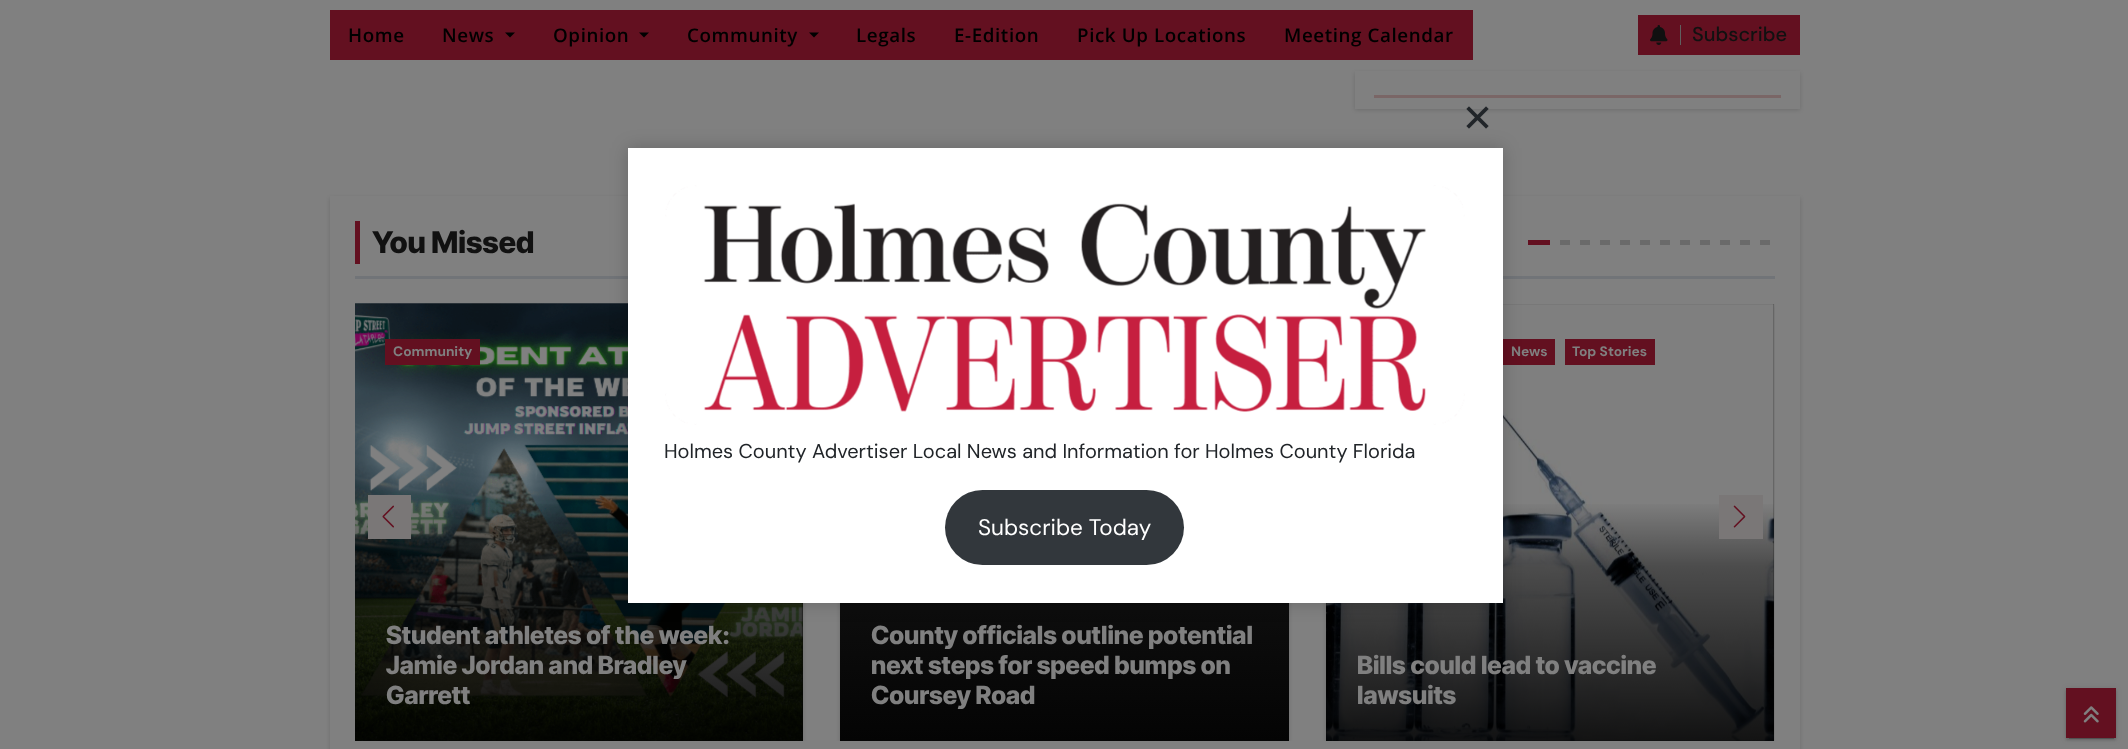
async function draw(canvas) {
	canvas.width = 2128;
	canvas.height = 749;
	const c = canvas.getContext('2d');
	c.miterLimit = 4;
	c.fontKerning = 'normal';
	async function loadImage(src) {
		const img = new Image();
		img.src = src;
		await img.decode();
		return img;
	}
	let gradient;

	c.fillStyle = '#808080';
	c.fillRect(0, 0, 2128, 749);
	c.fillStyle = '#631020';
	c.fillRect(330, 10, 1143, 50);
	c.letterSpacing = '0.6px';
	c.font = '600 18.75px Open Sans';
	c.fillStyle = '#000';
	c.fillText('Home', 348, 42);
	c.fillText('News', 442, 42);
	c.beginPath();
	c.moveTo(505, 32.5);
	c.lineTo(515, 32.5);
	c.lineTo(510, 37.5);
	c.closePath();
	c.fill();
	c.fillText('Opinion', 553, 42);
	c.beginPath();
	c.moveTo(639, 32.5);
	c.lineTo(649, 32.5);
	c.lineTo(644, 37.5);
	c.closePath();
	c.fill();
	c.fillText('Community', 687, 42);
	c.beginPath();
	c.moveTo(809, 32.5);
	c.lineTo(819, 32.5);
	c.lineTo(814, 37.5);
	c.closePath();
	c.fill();
	for (const [text, x, y] of [
		['Legals', 856, 42],
		['E-Edition', 954, 42],
		['Pick Up Locations', 1077, 42],
		['Meeting Calendar', 1284, 42],
	]) {
		c.fillText(text, x, y);
	}
	c.fillStyle = '#631020';
	c.fillRect(1638, 15, 162, 40);
	c.drawImage(await loadImage('img1.png'), 1650, 25, 18, 20);
	c.fillStyle = '#5f5f5f';
	c.fillRect(1680, 25, 1, 20);
	c.letterSpacing = '0px';
	c.font = '500 20px DM Sans';
	c.fillStyle = '#111';
	c.fillText('Subscribe', 1692, 41);
	c.fillStyle = '#00000026';
	c.filter = 'blur(2px)';
	c.beginPath();
	c.rect(1355, 73, 445, 37);
	c.fill();
	c.filter = 'none';
	c.fillStyle = '#808080';
	c.fillRect(1355, 71, 445, 38);
	c.fillStyle = '#7a6666';
	c.fillRect(1374, 95, 407, 3);
	c.fillStyle = '#00000026';
	c.filter = 'blur(2px)';
	c.beginPath();
	c.rect(330, 198, 1470, 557);
	c.fill();
	c.filter = 'none';
	for (const [x, y, w, h, color] of [
		[330, 196, 1470, 553, '#808080'],
		[355, 276, 1420, 3, '#717478'],
		[355, 221, 5, 43, '#631020'],
	]) {
		c.fillStyle = color;
		c.fillRect(x, y, w, h);
	}
	c.font = '800 30px Inter Tight';
	c.fillStyle = '#111';
	c.fillText('You Missed', 372, 253);
	for (const [x, y, w, h, color] of [
		[1528, 240, 22, 5, '#631020'],
		[1560, 240, 10, 5, '#6a6a6a'],
		[1580, 240, 10, 5, '#6a6a6a'],
		[1600, 240, 10, 5, '#6a6a6a'],
		[1620, 240, 10, 5, '#6a6a6a'],
		[1640, 240, 10, 5, '#6a6a6a'],
		[1660, 240, 10, 5, '#6a6a6a'],
		[1680, 240, 10, 5, '#6a6a6a'],
		[1700, 240, 10, 5, '#6a6a6a'],
		[1720, 240, 10, 5, '#6a6a6a'],
		[1740, 240, 10, 5, '#6a6a6a'],
		[1760, 240, 10, 5, '#6a6a6a'],
	]) {
		c.fillStyle = color;
		c.fillRect(x, y, w, h);
	}
	c.save();
	c.beginPath();
	c.rect(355, 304, 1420, 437);
	c.clip();
	c.fillStyle = '#00000026';
	c.filter = 'blur(2px)';
	c.beginPath();
	c.rect(354, 305, 449, 438);
	c.fill();
	c.filter = 'none';
	c.restore();
	c.fillStyle = '#1a1a1a';
	c.fillRect(355, 304, 448, 437);
	c.drawImage(await loadImage('img2.png'), 355, 303, 448, 438);
	c.fillStyle = '#631020';
	c.fillRect(385, 339, 95, 26);
	c.font = 'bold 13.75px DM Sans';
	c.fillStyle = '#808080';
	c.fillText('Community', 393, 356);
	gradient = c.createLinearGradient(578, 304, 578, 741);
	gradient.addColorStop(0, '#00000000');
	gradient.addColorStop(0.45, '#00000000');
	gradient.addColorStop(0.6, '#00000066');
	gradient.addColorStop(1, '#000000d9');
	c.fillStyle = gradient;
	c.fillRect(355, 504, 448, 237);
	c.font = '800 25px Inter Tight';
	c.fillStyle = '#808080';
	for (const [text, x, y] of [
		['Student athletes of the week:', 386, 644],
		['Jamie Jordan and Bradley', 386, 674],
		['Garrett', 386, 704],
	]) {
		c.fillText(text, x, y);
	}
	c.save();
	c.beginPath();
	c.rect(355, 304, 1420, 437);
	c.clip();
	c.fillStyle = '#00000026';
	c.filter = 'blur(2px)';
	c.beginPath();
	c.rect(840, 305, 449, 438);
	c.fill();
	c.filter = 'none';
	c.restore();
	gradient = c.createLinearGradient(1064, 304, 1064, 741);
	gradient.addColorStop(0, '#1a1a1a');
	gradient.addColorStop(0.45, '#1a1a1a');
	gradient.addColorStop(0.6, '#101010');
	gradient.addColorStop(1, '#040404');
	c.fillStyle = gradient;
	c.fillRect(840, 603, 449, 138);
	c.fillStyle = '#808080';
	for (const [text, x, y] of [
		['County officials outline potential', 871, 644],
		['next steps for speed bumps on', 871, 674],
		['Coursey Road', 871, 704],
	]) {
		c.fillText(text, x, y);
	}
	c.save();
	c.beginPath();
	c.rect(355, 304, 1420, 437);
	c.clip();
	c.fillStyle = '#00000026';
	c.filter = 'blur(2px)';
	c.beginPath();
	c.rect(1326, 305, 448, 438);
	c.fill();
	c.filter = 'none';
	c.restore();
	c.fillStyle = '#1a1a1a';
	c.fillRect(1326, 304, 448, 437);
	c.drawImage(await loadImage('img3.png'), 1326, 304, 448, 437);
	c.fillStyle = '#631020';
	c.fillRect(1503, 339, 52, 26);
	c.font = 'bold 13.75px DM Sans';
	c.fillStyle = '#808080';
	c.fillText('News', 1511, 356);
	c.fillStyle = '#631020';
	c.fillRect(1565, 339, 90, 26);
	c.fillStyle = '#808080';
	c.fillText('Top Stories', 1572, 356);
	gradient = c.createLinearGradient(1550, 304, 1550, 741);
	gradient.addColorStop(0, '#00000000');
	gradient.addColorStop(0.45, '#00000000');
	gradient.addColorStop(0.6, '#00000066');
	gradient.addColorStop(1, '#000000d9');
	c.fillStyle = gradient;
	c.fillRect(1326, 504, 448, 237);
	c.font = '800 25px Inter Tight';
	c.fillStyle = '#808080';
	c.fillText('Bills could lead to vaccine', 1357, 674);
	c.fillText('lawsuits', 1357, 704);
	c.fillStyle = '#7a7777';
	c.fillRect(368, 495, 43, 44);
	c.drawImage(await loadImage('img4.png'), 382, 505, 12, 23);
	c.fillRect(1719, 495, 44, 44);
	c.drawImage(await loadImage('img5.png'), 1733, 505, 13, 23);
	c.fillStyle = '#00000033';
	c.filter = 'blur(9px)';
	c.beginPath();
	c.rect(628, 148, 875, 455);
	c.fill();
	c.filter = 'none';
	c.fillStyle = '#fff';
	c.fillRect(628, 148, 875, 455);
	c.drawImage(await loadImage('img6.png'), 1466, 106, 23, 23);
	c.drawImage(await loadImage('img7.png'), 665, 185, 800, 240);
	c.font = '20px DM Sans';
	c.fillStyle = '#212529';
	c.fillText('Holmes County Advertiser Local News and Information for Holmes County Florida', 664, 458);
	c.fillStyle = '#32373c';
	c.beginPath();
	c.roundRect(945, 490, 239, 75, 37.5);
	c.fill();
	c.font = '22.5px DM Sans';
	c.fillStyle = '#fff';
	c.fillText('Subscribe Today', 978, 535);
	c.fillStyle = '#0000001f';
	c.filter = 'blur(3px)';
	c.beginPath();
	c.rect(2066, 689, 50, 50);
	c.fill();
	c.filter = 'none';
	c.fillStyle = '#00000033';
	c.filter = 'blur(0.5px)';
	c.beginPath();
	c.rect(2069, 694, 45, 45);
	c.fill();
	c.filter = 'none';
	c.fillStyle = '#00000024';
	c.filter = 'blur(1px)';
	c.beginPath();
	c.rect(2066, 690, 50, 50);
	c.fill();
	c.filter = 'none';
	c.fillStyle = '#631020';
	c.fillRect(2066, 688, 50, 50);
	c.drawImage(await loadImage('img8.png'), 2083, 706, 16, 17);
}

draw(document.querySelector('canvas'));
